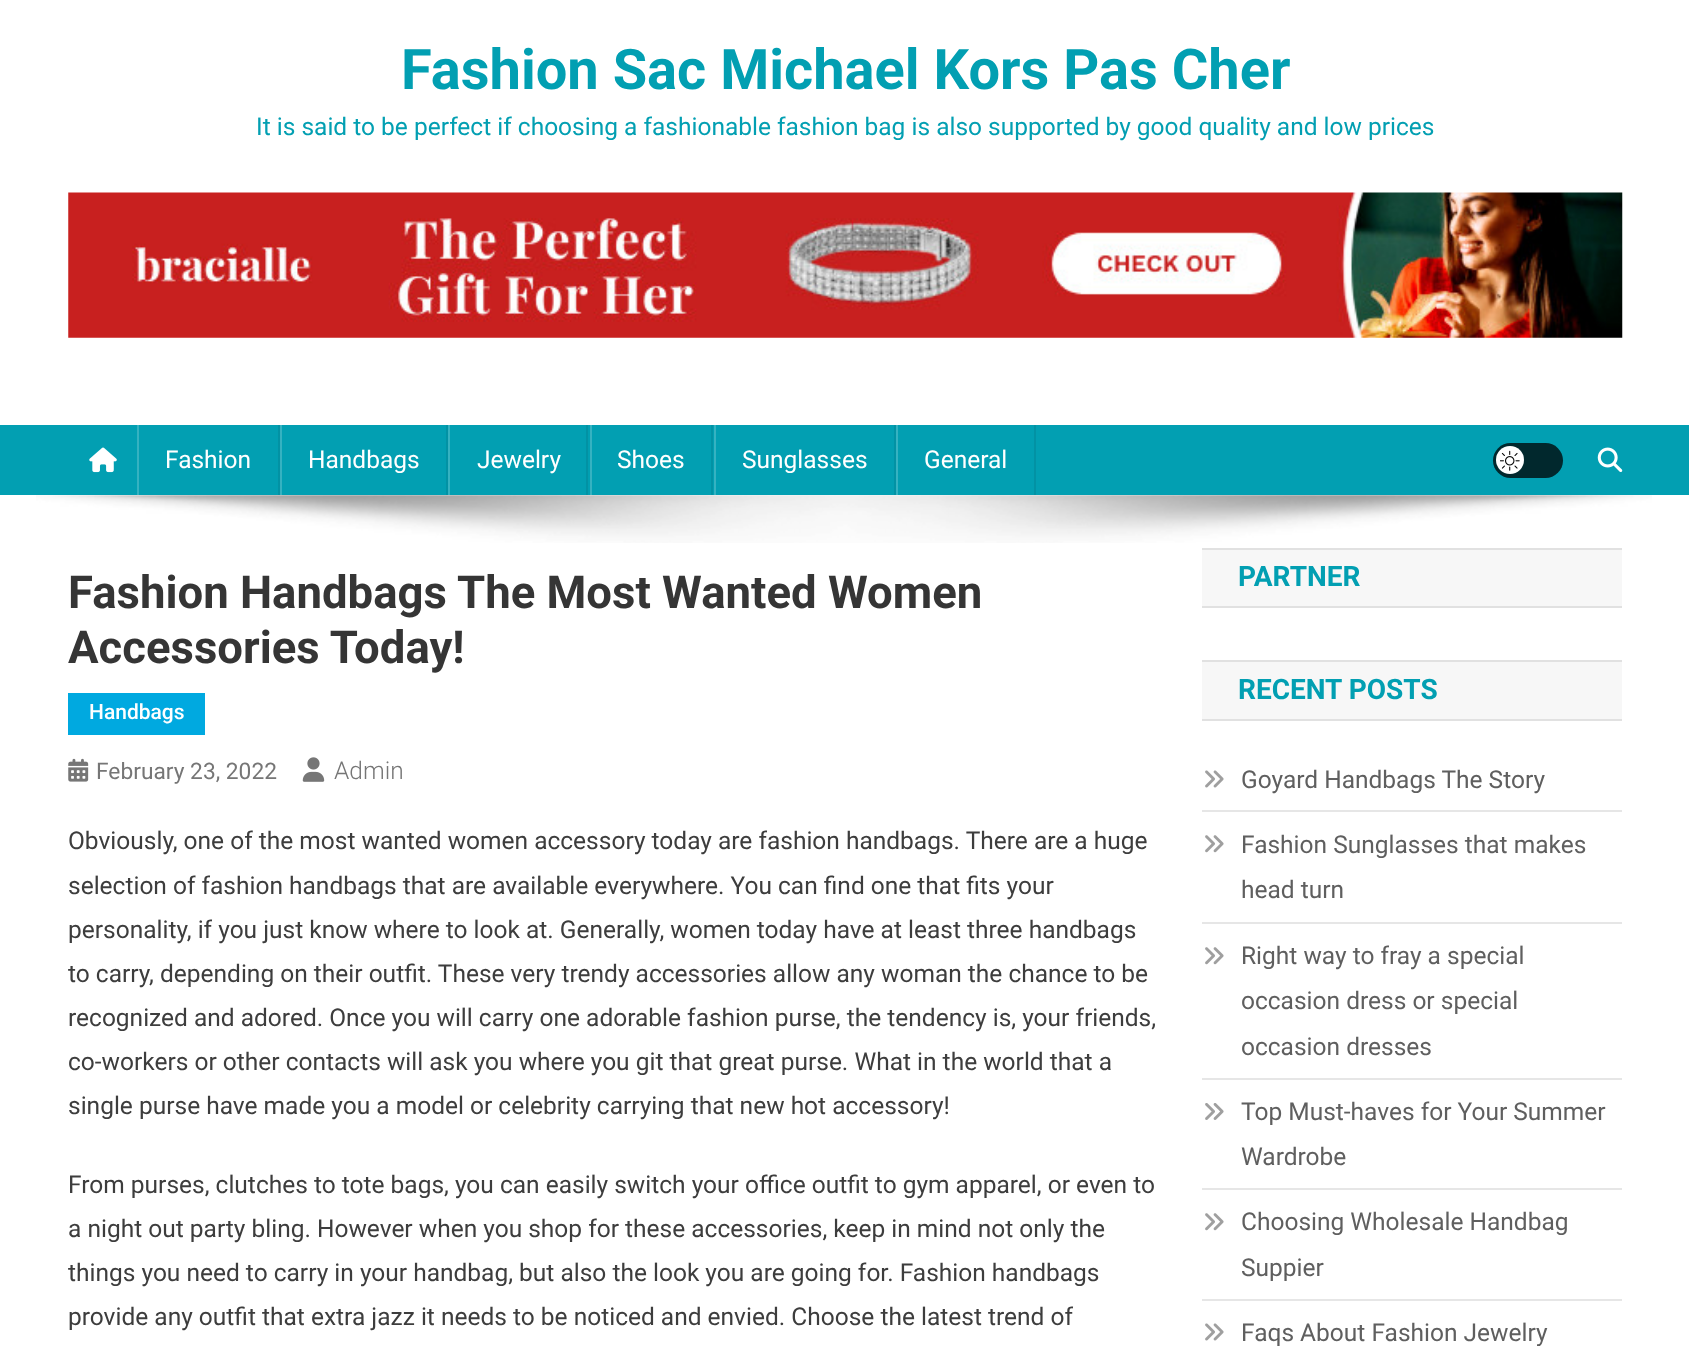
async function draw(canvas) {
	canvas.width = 1689;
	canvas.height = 1346;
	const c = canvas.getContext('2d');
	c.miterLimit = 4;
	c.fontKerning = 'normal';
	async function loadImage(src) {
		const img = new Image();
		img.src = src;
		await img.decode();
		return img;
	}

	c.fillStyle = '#fff';
	c.fillRect(0, 0, 1689, 1346);
	c.font = 'bold 56px Roboto';
	c.fillStyle = '#029fb2';
	c.fillText('Fashion Sac Michael Kors Pas Cher', 401, 89);
	c.font = '24.5px Roboto';
	c.fillText('It is said to be perfect if choosing a fashionable fashion bag is also supported by good quality and low prices', 256, 135);
	c.drawImage(await loadImage('img1.png'), 68, 192, 1555, 146);
	c.fillRect(0, 425, 1689, 70);
	c.drawImage(await loadImage('img2.png'), 89, 447, 28, 26);
	c.fillStyle = '#0292a4';
	c.fillRect(278, 425, 2, 70);
	c.fillStyle = '#35b2c1';
	c.fillRect(137, 425, 2, 70);
	c.fillStyle = '#fff';
	c.fillText('Fashion', 165, 468);
	c.fillStyle = '#0292a4';
	c.fillRect(446, 425, 2, 70);
	c.fillStyle = '#35b2c1';
	c.fillRect(280, 425, 2, 70);
	c.fillStyle = '#fff';
	c.fillText('Handbags', 308, 468);
	c.fillStyle = '#0292a4';
	c.fillRect(586, 425, 2, 70);
	c.fillStyle = '#35b2c1';
	c.fillRect(448, 425, 2, 70);
	c.fillStyle = '#fff';
	c.fillText('Jewelry', 477, 468);
	c.fillStyle = '#0292a4';
	c.fillRect(711, 425, 2, 70);
	c.fillStyle = '#35b2c1';
	c.fillRect(590, 425, 2, 70);
	c.fillStyle = '#fff';
	c.fillText('Shoes', 617, 468);
	c.fillStyle = '#0292a4';
	c.fillRect(894, 425, 2, 70);
	c.fillStyle = '#35b2c1';
	c.fillRect(714, 425, 2, 70);
	c.fillStyle = '#fff';
	c.fillText('Sunglasses', 742, 468);
	c.fillStyle = '#0292a4';
	c.fillRect(1034, 425, 2, 70);
	c.fillStyle = '#35b2c1';
	c.fillRect(896, 425, 2, 70);
	c.fillStyle = '#fff';
	c.fillText('General', 924, 468);
	c.fillStyle = '#01282d';
	c.beginPath();
	c.roundRect(1493, 443, 70, 35, 17.5);
	c.fill();
	c.fillStyle = '#fff';
	c.beginPath();
	c.arc(1510, 460, 14, 0, 2 * Math.PI);
	c.fill();
	c.drawImage(await loadImage('img3.png'), 1500, 450, 20, 21);
	c.drawImage(await loadImage('img4.png'), 1597, 447, 26, 25);
	c.drawImage(await loadImage('img5.png'), 36, 495, 1616, 48);
	c.font = 'bold 45.5px Roboto';
	c.fillStyle = '#353535';
	c.fillText('Fashion Handbags The Most Wanted Women', 68, 608);
	c.fillText('Accessories Today!', 68, 663);
	c.fillStyle = '#00a9e0';
	c.fillRect(68, 693, 137, 42);
	c.font = '500 21px Roboto';
	c.fillStyle = '#fff';
	c.fillText('Handbags', 89, 719);
	c.drawImage(await loadImage('img6.png'), 68, 758, 21, 24);
	c.font = '22.75px Roboto';
	c.fillStyle = '#767676';
	c.fillText('February 23, 2022', 96, 779);
	c.drawImage(await loadImage('img7.png'), 302, 757, 23, 25);
	c.font = '300 24.5px Roboto';
	c.fillText('Admin', 334, 779);
	c.font = '24.5px Roboto';
	c.fillStyle = '#3d3d3d';
	for (const [text, x, y] of [
		['Obviously, one of the most wanted women accessory today are fashion handbags. There are a huge', 68, 849],
		['selection of fashion handbags that are available everywhere. You can find one that fits your', 68, 894],
		['personality, if you just know where to look at. Generally, women today have at least three handbags', 68, 938],
		['to carry, depending on their outfit. These very trendy accessories allow any woman the chance to be', 68, 982],
		['recognized and adored. Once you will carry one adorable fashion purse, the tendency is, your friends,', 68, 1026],
		['co-workers or other contacts will ask you where you git that great purse. What in the world that a', 68, 1070],
		['single purse have made you a model or celebrity carrying that new hot accessory!', 68, 1114],
		['From purses, clutches to tote bags, you can easily switch your office outfit to gym apparel, or even to', 68, 1193],
		['a night out party bling. However when you shop for these accessories, keep in mind not only the', 68, 1237],
		['things you need to carry in your handbag, but also the look you are going for. Fashion handbags', 68, 1281],
		['provide any outfit that extra jazz it needs to be noticed and envied. Choose the latest trend of', 68, 1325],
	]) {
		c.fillText(text, x, y);
	}
	for (const [x, y, w, h, color] of [
		[1202, 550, 420, 56, '#f7f7f7'],
		[1202, 548, 420, 2, '#e1e1e1'],
		[1202, 606, 420, 2, '#e1e1e1'],
	]) {
		c.fillStyle = color;
		c.fillRect(x, y, w, h);
	}
	c.font = 'bold 28px Roboto';
	c.fillStyle = '#029fb2';
	c.fillText('PARTNER', 1238, 586);
	for (const [x, y, w, h, color] of [
		[1202, 662, 420, 57, '#f7f7f7'],
		[1202, 660, 420, 2, '#e1e1e1'],
		[1202, 719, 420, 2, '#e1e1e1'],
	]) {
		c.fillStyle = color;
		c.fillRect(x, y, w, h);
	}
	c.fillStyle = '#029fb2';
	c.fillText('RECENT POSTS', 1238, 699);
	c.fillStyle = '#e6e6e6';
	c.fillRect(1202, 810, 420, 2);
	c.drawImage(await loadImage('img8.png'), 1205, 770, 19, 18);
	c.font = '24.5px Roboto';
	c.fillStyle = '#5f5f5f';
	c.fillText('Goyard Handbags The Story', 1241, 788);
	c.fillStyle = '#e6e6e6';
	c.fillRect(1202, 922, 420, 2);
	c.drawImage(await loadImage('img9.png'), 1205, 835, 19, 18);
	c.fillStyle = '#5f5f5f';
	c.fillText('Fashion Sunglasses that makes', 1241, 853);
	c.fillText('head turn', 1241, 898);
	c.fillStyle = '#e6e6e6';
	c.fillRect(1202, 1078, 420, 2);
	c.drawImage(await loadImage('img9.png'), 1205, 947, 19, 18);
	c.fillStyle = '#5f5f5f';
	for (const [text, x, y] of [
		['Right way to fray a special', 1241, 964],
		['occasion dress or special', 1241, 1009],
		['occasion dresses', 1241, 1055],
	]) {
		c.fillText(text, x, y);
	}
	c.fillStyle = '#e6e6e6';
	c.fillRect(1202, 1188, 420, 2);
	c.drawImage(await loadImage('img10.png'), 1205, 1103, 19, 17);
	c.fillStyle = '#5f5f5f';
	c.fillText('Top Must-haves for Your Summer', 1241, 1120);
	c.fillText('Wardrobe', 1241, 1165);
	c.fillStyle = '#e6e6e6';
	c.fillRect(1202, 1299, 420, 2);
	c.drawImage(await loadImage('img9.png'), 1205, 1213, 19, 18);
	c.fillStyle = '#5f5f5f';
	c.fillText('Choosing Wholesale Handbag', 1241, 1230);
	c.fillText('Suppier', 1241, 1276);
	c.drawImage(await loadImage('img8.png'), 1205, 1323, 19, 18);
	c.fillText('Faqs About Fashion Jewelry', 1241, 1341);
}

draw(document.querySelector('canvas'));
